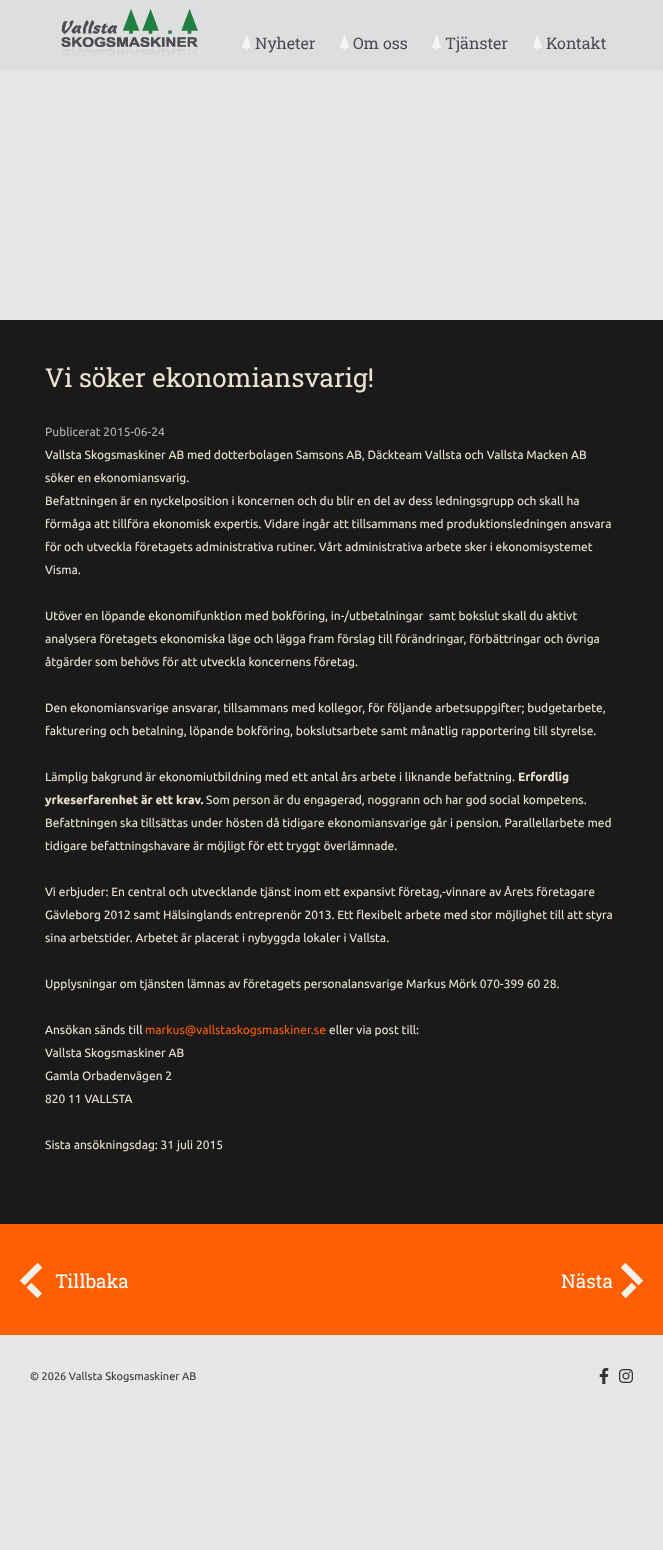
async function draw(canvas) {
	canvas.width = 663;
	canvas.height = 1550;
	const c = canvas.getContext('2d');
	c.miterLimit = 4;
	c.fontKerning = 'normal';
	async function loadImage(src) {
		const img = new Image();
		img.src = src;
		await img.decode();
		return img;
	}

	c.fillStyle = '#e6e6e6';
	c.fillRect(0, 0, 663, 1550);
	c.fillStyle = '#dddee0';
	c.fillRect(0, 0, 663, 70);
	c.drawImage(await loadImage('img1.png'), 55, 8, 144, 48);
	c.drawImage(await loadImage('img2.png'), 242, 35, 9, 15);
	c.font = '16px Roboto Slab';
	c.fillStyle = '#4a4c4f';
	c.fillText('Nyheter', 255, 49);
	c.drawImage(await loadImage('img2.png'), 340, 35, 9, 15);
	c.fillText('Om oss', 353, 49);
	c.drawImage(await loadImage('img2.png'), 432, 35, 9, 15);
	c.fillText('Tjänster', 445, 49);
	c.drawImage(await loadImage('img2.png'), 533, 35, 9, 15);
	c.fillText('Kontakt', 546, 49);
	c.fillStyle = '#1a1a1a';
	c.fillRect(0, 320, 663, 904);
	c.font = '26px Roboto Slab';
	c.fillStyle = '#ebe3d0';
	c.fillText('Vi söker ekonomiansvarig!', 45, 387);
	c.font = '12px Ubuntu';
	c.fillStyle = '#b3b3b3';
	c.fillText('Publicerat 2015-06-24', 45, 436);
	c.fillStyle = '#ebe3d0';
	for (const [text, x, y] of [
		['Vallsta Skogsmaskiner AB med dotterbolagen Samsons AB, Däckteam Vallsta och Vallsta Macken AB', 45, 459],
		['söker en ekonomiansvarig.', 45, 482],
		['Befattningen är en nyckelposition i koncernen och du blir en del av dess ledningsgrupp och skall ha', 45, 505],
		['förmåga att tillföra ekonomisk expertis. Vidare ingår att tillsammans med produktionsledningen ansvara', 45, 528],
		['för och utveckla företagets administrativa rutiner. Vårt administrativa arbete sker i ekonomisystemet', 45, 551],
		['Visma.', 45, 574],
		['Utöver en löpande ekonomifunktion med bokföring, in-/utbetalningar  samt bokslut skall du aktivt', 45, 620],
		['analysera företagets ekonomiska läge och lägga fram förslag till förändringar, förbättringar och övriga', 45, 643],
		['åtgärder som behövs för att utveckla koncernens företag.', 45, 666],
		['Den ekonomiansvarige ansvarar, tillsammans med kollegor, för följande arbetsuppgifter; budgetarbete,', 45, 712],
		['fakturering och betalning, löpande bokföring, bokslutsarbete samt månatlig rapportering till styrelse.', 45, 735],
		['Lämplig bakgrund är ekonomiutbildning med ett antal års arbete i liknande befattning.', 45, 781],
	]) {
		c.fillText(text, x, y);
	}
	c.font = 'bold 12px Ubuntu';
	c.fillText('Erfordlig', 518, 781);
	c.fillText('yrkeserfarenhet är ett krav.', 45, 804);
	c.font = '12px Ubuntu';
	for (const [text, x, y] of [
		['Som person är du engagerad, noggrann och har god social kompetens.', 206, 804],
		['Befattningen ska tillsättas under hösten då tidigare ekonomiansvarige går i pension. Parallellarbete med', 45, 827],
		['tidigare befattningshavare är möjligt för ett tryggt överlämnade.', 45, 850],
		['Vi erbjuder: En central och utvecklande tjänst inom ett expansivt företag,-vinnare av Årets företagare', 45, 896],
		['Gävleborg 2012 samt Hälsinglands entreprenör 2013. Ett flexibelt arbete med stor möjlighet till att styra', 45, 919],
		['sina arbetstider. Arbetet är placerat i nybyggda lokaler i Vallsta.', 45, 942],
		['Upplysningar om tjänsten lämnas av företagets personalansvarige Markus Mörk 070-399 60 28.', 45, 988],
		['Ansökan sänds till', 45, 1034],
	]) {
		c.fillText(text, x, y);
	}
	c.fillStyle = '#ff5f00';
	c.fillText('markus@vallstaskogsmaskiner.se', 145, 1034);
	c.fillStyle = '#ebe3d0';
	for (const [text, x, y] of [
		['eller via post till:', 329, 1034],
		['Vallsta Skogsmaskiner AB', 45, 1057],
		['Gamla Orbadenvägen 2', 45, 1080],
		['820 11 VALLSTA', 45, 1103],
		['Sista ansökningsdag: 31 juli 2015', 45, 1149],
	]) {
		c.fillText(text, x, y);
	}
	c.fillStyle = '#ff5f00';
	c.fillRect(0, 1224, 663, 111);
	c.drawImage(await loadImage('img3.png'), 20, 1263, 22, 35);
	c.font = '19px Roboto Slab';
	c.fillStyle = '#fff';
	c.fillText('Tillbaka', 55, 1288);
	c.drawImage(await loadImage('img4.png'), 621, 1263, 22, 35);
	c.fillText('Nästa', 561, 1288);
	c.font = '11px Ubuntu';
	c.fillStyle = '#333';
	c.fillText('© 2026 Vallsta Skogsmaskiner AB', 30, 1380);
	c.drawImage(await loadImage('img5.png'), 599, 1368, 10, 16);
	c.drawImage(await loadImage('img6.png'), 619, 1369, 14, 14);
}

draw(document.querySelector('canvas'));
